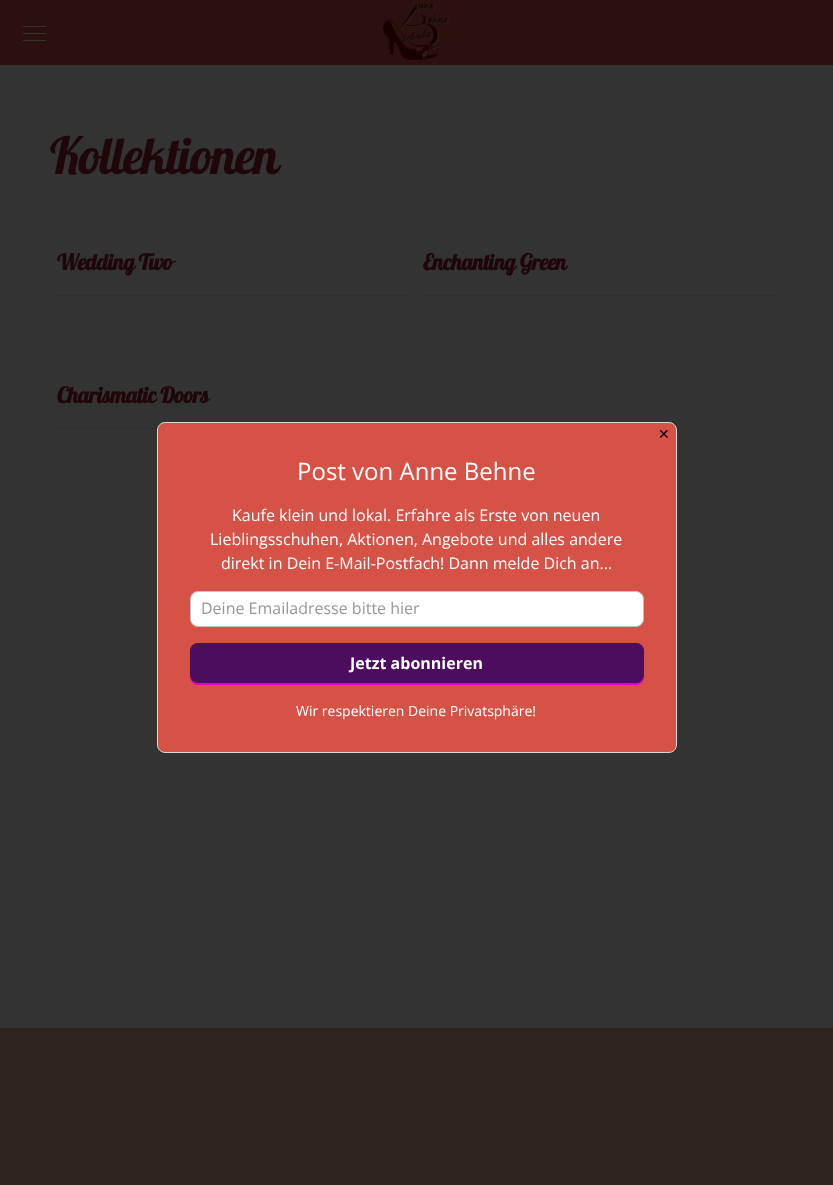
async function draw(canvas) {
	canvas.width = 833;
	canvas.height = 1185;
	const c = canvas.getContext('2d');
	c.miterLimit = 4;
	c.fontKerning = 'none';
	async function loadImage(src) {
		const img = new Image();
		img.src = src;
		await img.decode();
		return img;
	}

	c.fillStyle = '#333';
	c.fillRect(0, 0, 833, 1185);
	c.fillStyle = '#2b100e';
	c.fillRect(0, 0, 833, 65);
	c.drawImage(await loadImage('img1.png'), 383, 4, 67, 56);
	for (const [x, y, w, h, color] of [
		[23, 33, 23, 1, '#333'],
		[23, 26, 23, 1, '#333'],
		[23, 40, 23, 1, '#333'],
	]) {
		c.fillStyle = color;
		c.fillRect(x, y, w, h);
	}
	c.letterSpacing = '-1.6px';
	c.font = '51px Lobster';
	c.fillStyle = '#1f0609';
	c.fillText('Kollektionen', 50, 174);
	c.letterSpacing = '-0.5px';
	c.font = 'bold 22px Lobster';
	c.fillText('Wedding Two', 57, 270);
	c.fillStyle = '#2e2e2e';
	c.fillRect(57, 295, 353, 1);
	c.fillStyle = '#1f0609';
	c.fillText('Enchanting Green', 423, 270);
	c.fillStyle = '#2e2e2e';
	c.fillRect(423, 295, 353, 1);
	c.fillStyle = '#1f0609';
	c.fillText('Charismatic Doors', 57, 403);
	c.fillStyle = '#2e2e2e';
	c.fillRect(57, 428, 101, 1);
	c.fillStyle = '#2f241d';
	c.fillRect(0, 1028, 833, 157);
	c.fillStyle = '#d65246';
	c.beginPath();
	c.roundRect(157.5, 422.5, 519, 330, 7.5);
	c.fill();
	c.strokeStyle = '#d4d8d8';
	c.stroke();
	c.letterSpacing = '0px';
	c.font = '14px DejaVu Sans';
	c.fillStyle = '#000';
	c.fillText('✕', 658, 439);
	c.font = '24px Open Sans';
	c.fillStyle = '#fff';
	c.fillText('Post von Anne Behne', 297, 480);
	c.font = '16px Open Sans';
	for (const [text, x, y] of [
		['Kaufe klein und lokal. Erfahre als Erste von neuen', 232, 521],
		['Lieblingsschuhen, Aktionen, Angebote und alles andere', 210, 545],
		['direkt in Dein E-Mail-Postfach! Dann melde Dich an...', 221, 569],
	]) {
		c.fillText(text, x, y);
	}
	c.beginPath();
	c.roundRect(190.5, 591.5, 453, 35, 7.5);
	c.fill();
	c.strokeStyle = '#bec2c2';
	c.stroke();
	c.fillStyle = '#9b9797';
	c.fillText('Deine Emailadresse bitte hier', 201, 614);
	c.fillStyle = '#db02d4';
	c.beginPath();
	c.roundRect(190, 643, 454, 42, 8);
	c.fill();
	c.fillStyle = '#4c0d5e';
	c.beginPath();
	c.roundRect(190, 643, 454, 40, 8);
	c.fill();
	c.font = 'bold 16px Open Sans';
	c.fillStyle = '#fff';
	c.fillText('Jetzt abonnieren', 350, 669);
	c.font = '14px Open Sans';
	c.fillText('Wir respektieren Deine Privatsphäre!', 296, 716);
}

draw(document.querySelector('canvas'));
